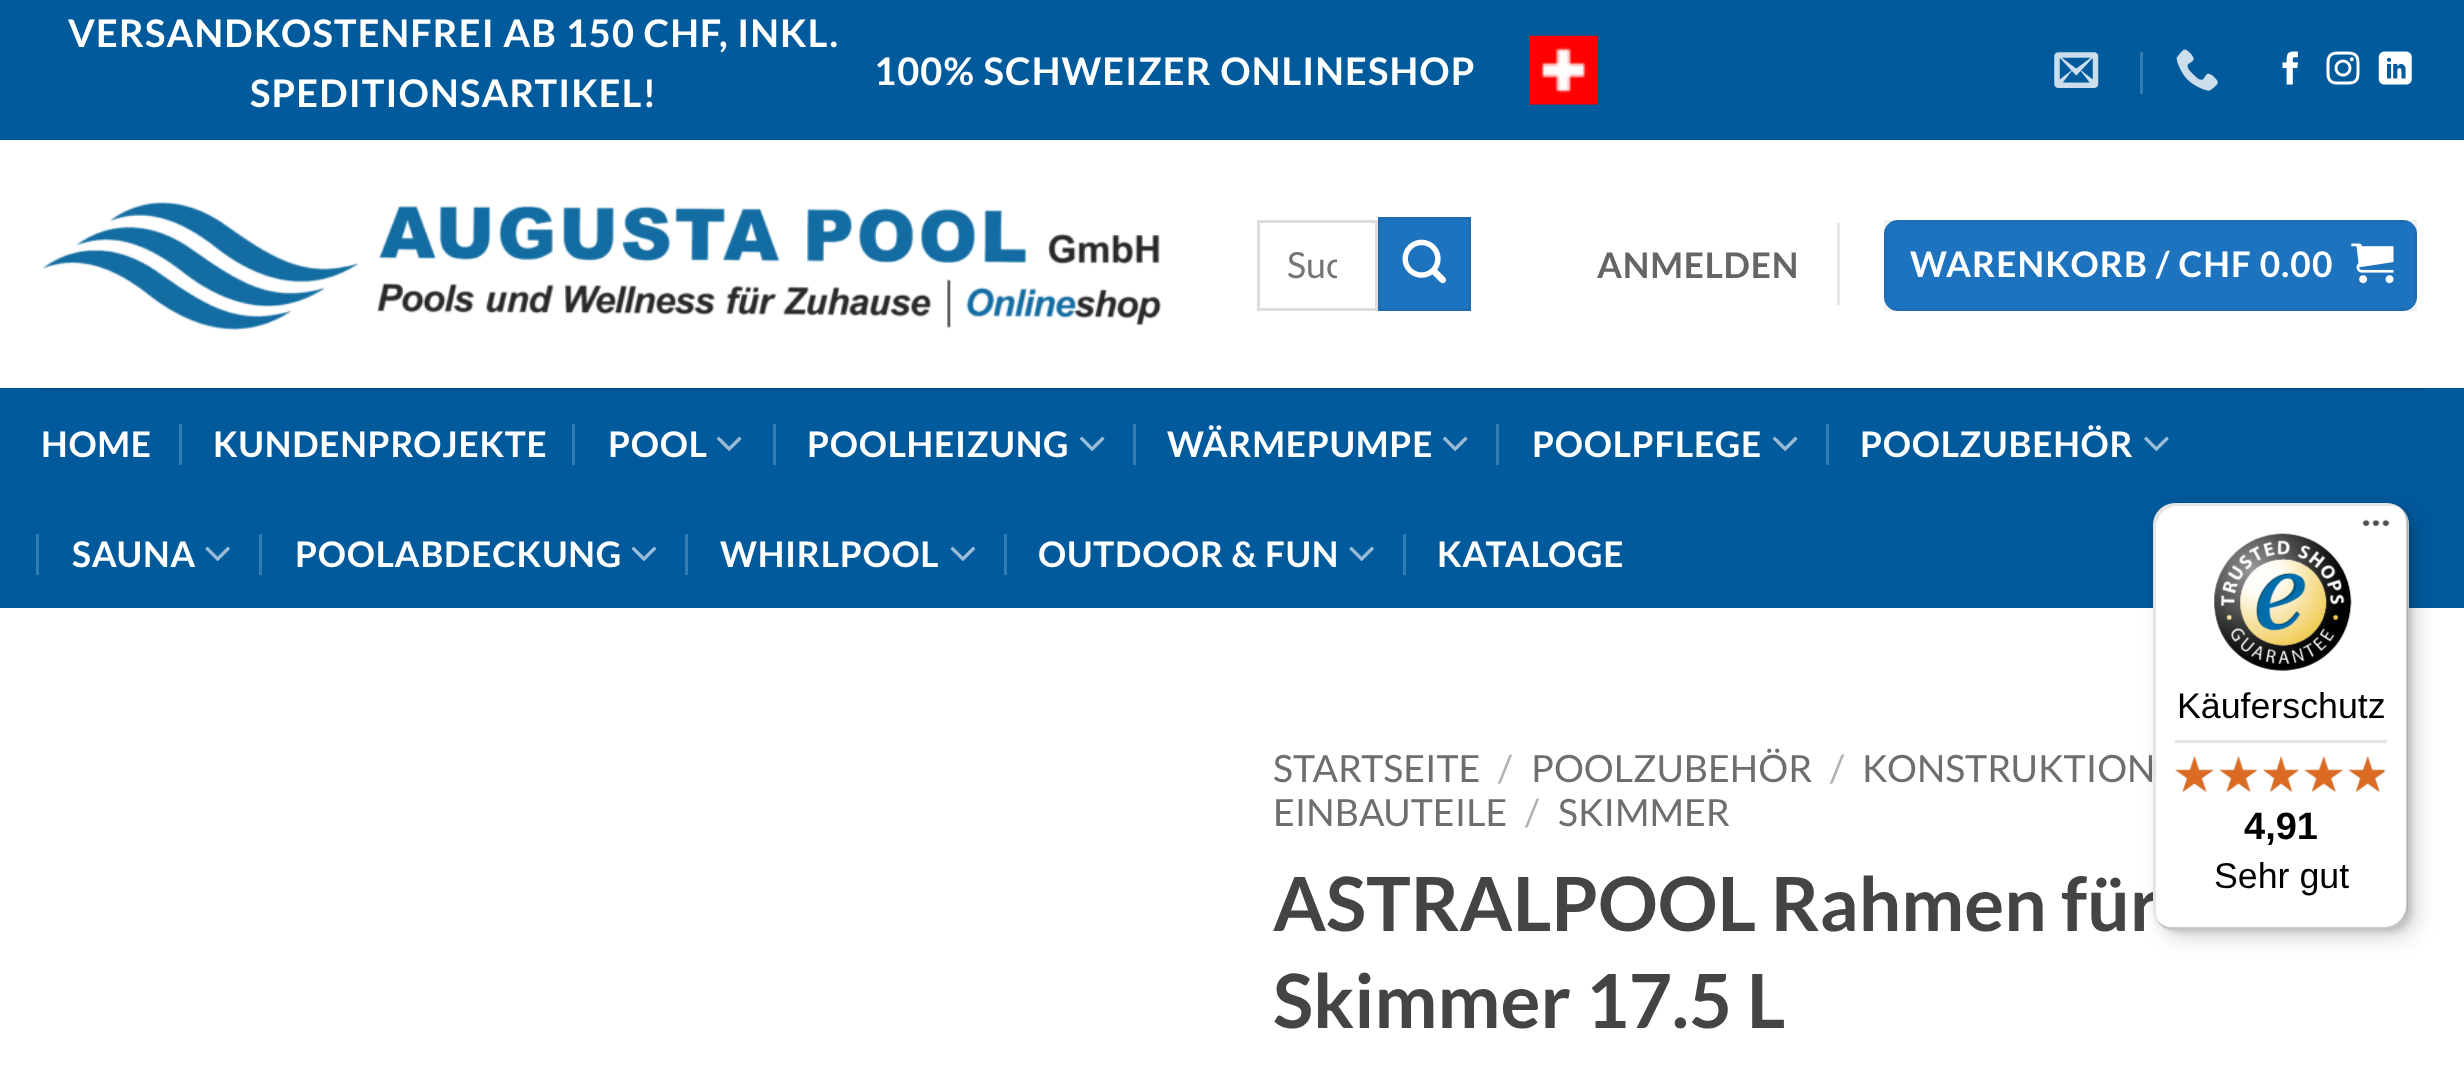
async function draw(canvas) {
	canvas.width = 2464;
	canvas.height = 1076;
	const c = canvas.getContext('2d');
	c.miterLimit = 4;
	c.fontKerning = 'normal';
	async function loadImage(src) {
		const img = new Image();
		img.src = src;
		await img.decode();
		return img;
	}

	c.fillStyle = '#fff';
	c.fillRect(0, 0, 2464, 1076);
	c.fillStyle = '#015a9c';
	c.fillRect(0, 0, 2464, 140);
	c.letterSpacing = '1.15px';
	c.font = 'bold 37.95px Lato';
	c.fillStyle = '#fff';
	for (const [text, x, y] of [
		['VERSANDKOSTENFREI AB 150 CHF, INKL.', 68, 47],
		['SPEDITIONSARTIKEL!', 250, 107],
		['100% SCHWEIZER ONLINESHOP', 874, 85],
	]) {
		c.fillText(text, x, y);
	}
	c.drawImage(await loadImage('img1.png'), 1529, 35, 69, 70);
	c.drawImage(await loadImage('img2.png'), 2054, 52, 45, 36);
	c.fillStyle = '#347bb0';
	c.fillRect(2140, 52, 3, 42);
	c.drawImage(await loadImage('img3.png'), 2176, 49, 42, 42);
	c.drawImage(await loadImage('img4.png'), 2282, 51, 16, 34);
	c.drawImage(await loadImage('img5.png'), 2326, 51, 34, 34);
	c.drawImage(await loadImage('img6.png'), 2378, 51, 34, 34);
	c.drawImage(await loadImage('img7.png'), 42, 202, 1119, 128);
	c.strokeStyle = '#ddd';
	c.lineWidth = 3;
	c.strokeRect(1258.5, 221.5, 118, 88);
	c.save();
	c.beginPath();
	c.rect(1287, 242, 50, 44);
	c.clip();
	c.letterSpacing = '0px';
	c.font = '36px Lato';
	c.fillStyle = '#757575';
	c.fillText('Suc', 1287, 278);
	c.restore();
	c.fillStyle = '#1e73be';
	c.beginPath();
	c.rect(1379.5, 218.5, 90, 91);
	c.fill();
	c.strokeStyle = '#1d6db5';
	c.stroke();
	c.drawImage(await loadImage('img8.png'), 1402, 239, 44, 45);
	c.letterSpacing = '0.75px';
	c.font = 'bold 35.25px Lato';
	c.fillStyle = '#656565';
	c.fillText('ANMELDEN', 1597, 278);
	c.fillStyle = '#e6e6e6';
	c.fillRect(1837, 223, 3, 82);
	c.fillStyle = '#1e73be';
	c.beginPath();
	c.roundRect(1884, 220, 533, 91, 14);
	c.fill();
	c.strokeStyle = '#0000000d';
	c.strokeRect(1885.5, 221.5, 530, 88);
	c.letterSpacing = '1.1px';
	c.fillStyle = '#fff';
	c.fillText('WARENKORB / CHF 0.00', 1910, 277);
	c.drawImage(await loadImage('img9.png'), 2351, 243, 43, 41);
	c.fillStyle = '#015a9c';
	c.fillRect(0, 388, 2464, 220);
	c.fillStyle = '#01518c';
	c.fillRect(41, 388, 2382, 3);
	c.letterSpacing = '0.75px';
	c.fillStyle = '#fff';
	c.fillText('HOME', 41, 457);
	c.fillStyle = '#347bb0';
	c.fillRect(179, 424, 3, 41);
	c.fillStyle = '#fff';
	c.fillText('KUNDENPROJEKTE', 213, 457);
	c.fillStyle = '#347bb0';
	c.fillRect(572, 424, 3, 41);
	c.fillStyle = '#fff';
	c.fillText('POOL', 608, 457);
	c.drawImage(await loadImage('img10.png'), 717, 436, 25, 15);
	c.fillStyle = '#347bb0';
	c.fillRect(773, 424, 3, 41);
	c.fillStyle = '#fff';
	c.fillText('POOLHEIZUNG', 807, 457);
	c.drawImage(await loadImage('img10.png'), 1080, 436, 25, 15);
	c.fillStyle = '#347bb0';
	c.fillRect(1133, 424, 3, 41);
	c.fillStyle = '#fff';
	c.fillText('WÄRMEPUMPE', 1167, 457);
	c.drawImage(await loadImage('img10.png'), 1443, 436, 25, 15);
	c.fillStyle = '#347bb0';
	c.fillRect(1496, 424, 3, 41);
	c.fillStyle = '#fff';
	c.fillText('POOLPFLEGE', 1532, 457);
	c.drawImage(await loadImage('img10.png'), 1773, 436, 25, 15);
	c.fillStyle = '#347bb0';
	c.fillRect(1826, 424, 3, 41);
	c.fillStyle = '#fff';
	c.fillText('POOLZUBEHÖR', 1860, 457);
	c.drawImage(await loadImage('img11.png'), 2144, 436, 25, 15);
	c.fillStyle = '#347bb0';
	c.fillRect(36, 534, 3, 41);
	c.fillStyle = '#fff';
	c.fillText('SAUNA', 72, 567);
	c.drawImage(await loadImage('img12.png'), 205, 546, 25, 15);
	c.fillStyle = '#347bb0';
	c.fillRect(259, 534, 3, 41);
	c.fillStyle = '#fff';
	c.fillText('POOLABDECKUNG', 295, 567);
	c.drawImage(await loadImage('img13.png'), 631, 546, 26, 15);
	c.fillStyle = '#347bb0';
	c.fillRect(685, 534, 3, 41);
	c.fillStyle = '#fff';
	c.fillText('WHIRLPOOL', 720, 567);
	c.drawImage(await loadImage('img13.png'), 950, 546, 26, 15);
	c.fillStyle = '#347bb0';
	c.fillRect(1004, 534, 3, 41);
	c.fillStyle = '#fff';
	c.fillText('OUTDOOR & FUN', 1038, 567);
	c.drawImage(await loadImage('img12.png'), 1349, 546, 25, 15);
	c.fillStyle = '#347bb0';
	c.fillRect(1403, 534, 3, 41);
	c.fillStyle = '#fff';
	c.fillText('KATALOGE', 1437, 567);
	c.letterSpacing = '0px';
	c.font = '37.5px Lato';
	c.fillStyle = '#6e6e6e';
	c.fillText('STARTSEITE', 1273, 782);
	c.fillStyle = '#b2b2b2';
	c.fillText('/', 1498, 782);
	c.fillStyle = '#6e6e6e';
	c.fillText('POOLZUBEHÖR', 1531, 782);
	c.fillStyle = '#b2b2b2';
	c.fillText('/', 1830, 782);
	c.fillStyle = '#6e6e6e';
	c.fillText('KONSTRUKTION', 1862, 782);
	c.fillText('EINBAUTEILE', 1273, 826);
	c.fillStyle = '#b2b2b2';
	c.fillText('/', 1525, 826);
	c.fillStyle = '#6e6e6e';
	c.fillText('SKIMMER', 1558, 826);
	c.font = 'bold 74.75px Lato';
	c.fillStyle = '#444';
	c.fillText('ASTRALPOOL Rahmen für', 1273, 931);
	c.fillText('Skimmer 17.5 L', 1273, 1028);
	c.fillStyle = '#00000026';
	c.filter = 'blur(11px)';
	c.beginPath();
	c.roundRect(2162, 512, 255, 426, 22);
	c.fill();
	c.filter = 'none';
	c.filter = 'blur(3px)';
	c.beginPath();
	c.roundRect(2156, 506, 256, 426, 22);
	c.fill();
	c.filter = 'none';
	c.fillStyle = '#fff';
	c.beginPath();
	c.roundRect(2153, 503, 256, 427, 22);
	c.fill();
	c.fillStyle = '#0000001a';
	c.beginPath();
	c.moveTo(2178, 506);
	c.lineTo(2390, 506);
	c.bezierCurveTo(2395, 506, 2400, 508, 2404, 511);
	c.bezierCurveTo(2400, 506, 2394, 503, 2387, 503);
	c.lineTo(2175, 503);
	c.bezierCurveTo(2163, 503, 2153, 513, 2153, 525);
	c.lineTo(2153, 908);
	c.bezierCurveTo(2153, 916, 2158, 924, 2165, 927);
	c.bezierCurveTo(2159, 923, 2156, 917, 2156, 910);
	c.lineTo(2156, 528);
	c.bezierCurveTo(2156, 516, 2166, 506, 2178, 506);
	c.closePath();
	c.fill();
	c.fillStyle = '#00000033';
	c.beginPath();
	c.moveTo(2158, 922);
	c.bezierCurveTo(2162, 927, 2168, 930, 2175, 930);
	c.lineTo(2387, 930);
	c.bezierCurveTo(2399, 930, 2409, 920, 2409, 908);
	c.lineTo(2409, 525);
	c.bezierCurveTo(2409, 518, 2406, 512, 2401, 508);
	c.bezierCurveTo(2404, 512, 2406, 517, 2406, 522);
	c.lineTo(2406, 905);
	c.bezierCurveTo(2406, 917, 2396, 927, 2384, 927);
	c.lineTo(2172, 927);
	c.bezierCurveTo(2167, 927, 2162, 925, 2158, 922);
	c.closePath();
	c.fill();
	c.fillStyle = '#32323233';
	c.beginPath();
	c.moveTo(2155, 918);
	c.bezierCurveTo(2159, 925, 2167, 930, 2175, 930);
	c.lineTo(2387, 930);
	c.bezierCurveTo(2399, 930, 2409, 920, 2409, 908);
	c.lineTo(2409, 525);
	c.bezierCurveTo(2409, 518, 2405, 511, 2400, 507);
	c.bezierCurveTo(2404, 511, 2407, 517, 2407, 524);
	c.lineTo(2407, 906);
	c.bezierCurveTo(2407, 918, 2398, 928, 2385, 928);
	c.lineTo(2174, 928);
	c.bezierCurveTo(2166, 928, 2159, 924, 2155, 918);
	c.closePath();
	c.fill();
	c.fillStyle = '#ffffff4d';
	c.beginPath();
	c.moveTo(2155, 916);
	c.bezierCurveTo(2158, 924, 2166, 930, 2175, 930);
	c.lineTo(2387, 930);
	c.bezierCurveTo(2399, 930, 2409, 920, 2409, 908);
	c.lineTo(2409, 525);
	c.bezierCurveTo(2409, 518, 2406, 512, 2401, 508);
	c.bezierCurveTo(2405, 512, 2408, 518, 2408, 524);
	c.lineTo(2408, 906);
	c.bezierCurveTo(2408, 918, 2398, 928, 2386, 928);
	c.lineTo(2174, 928);
	c.bezierCurveTo(2166, 928, 2158, 923, 2155, 916);
	c.closePath();
	c.fill();
	c.drawImage(await loadImage('img14.png'), 2362, 519, 28, 8);
	c.drawImage(await loadImage('img15.png'), 2214, 533, 138, 138);
	c.font = '35.75px Liberation Sans';
	c.fillStyle = '#000';
	c.fillText('Käuferschutz', 2177, 718);
	c.fillStyle = '#e5e5e5';
	c.fillRect(2175, 740, 212, 3);
	c.drawImage(await loadImage('img16.png'), 2175, 756, 39, 36);
	c.drawImage(await loadImage('img17.png'), 2219, 756, 39, 36);
	c.drawImage(await loadImage('img18.png'), 2263, 757, 36, 35);
	c.drawImage(await loadImage('img19.png'), 2304, 756, 39, 36);
	c.drawImage(await loadImage('img19.png'), 2348, 756, 39, 36);
	c.drawImage(await loadImage('img20.png'), 2175, 756, 39, 36);
	c.drawImage(await loadImage('img21.png'), 2219, 756, 39, 36);
	c.drawImage(await loadImage('img22.png'), 2263, 756, 36, 36);
	c.drawImage(await loadImage('img23.png'), 2304, 756, 39, 36);
	c.drawImage(await loadImage('img24.png'), 2348, 756, 37, 36);
	c.font = 'bold 38px Liberation Sans';
	c.fillStyle = '#000';
	c.fillText('4,91', 2244, 839);
	c.font = '35.75px Liberation Sans';
	c.fillText('Sehr gut', 2214, 888);
}

draw(document.querySelector('canvas'));
